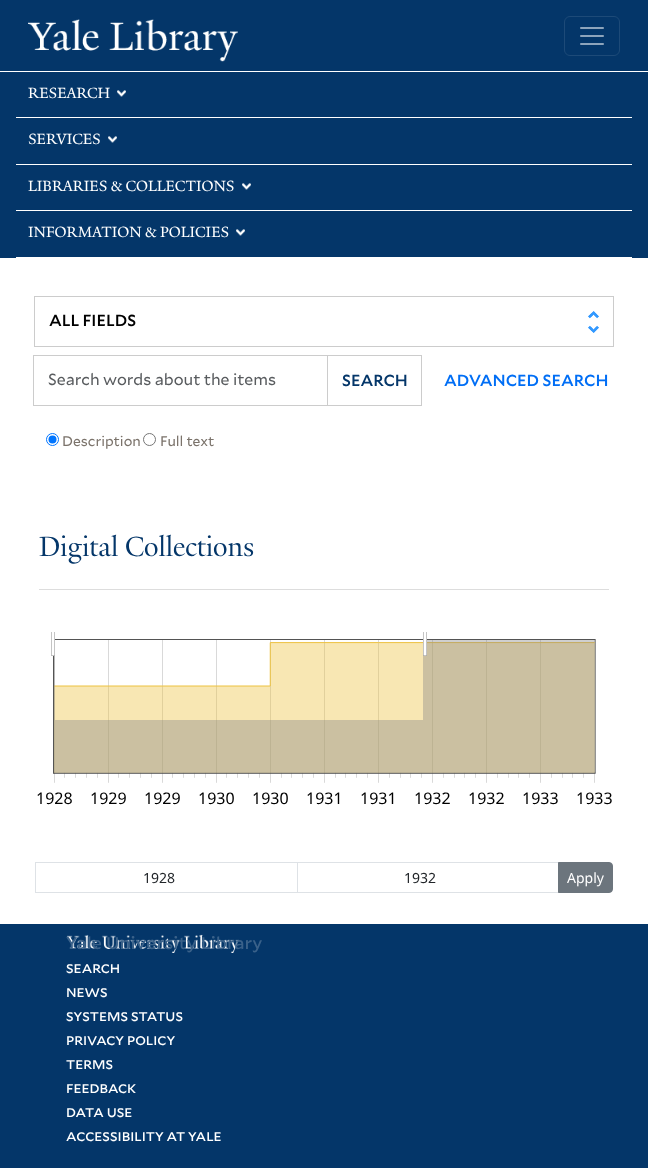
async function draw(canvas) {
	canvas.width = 648;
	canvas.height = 1168;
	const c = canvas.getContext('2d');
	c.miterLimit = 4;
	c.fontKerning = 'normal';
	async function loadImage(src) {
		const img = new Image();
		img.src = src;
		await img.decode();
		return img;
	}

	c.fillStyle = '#fff';
	c.fillRect(0, 0, 648, 1168);
	c.fillStyle = '#043669';
	c.fillRect(0, 0, 648, 71);
	c.drawImage(await loadImage('img1.png'), 28, 19, 210, 43);
	c.beginPath();
	c.roundRect(564.5, 16.5, 55, 39, 5.5);
	c.strokeStyle = '#1d4a78';
	c.stroke();
	c.drawImage(await loadImage('img2.png'), 580, 27, 24, 18);
	c.fillRect(0, 72, 648, 186);
	c.fillStyle = '#fff';
	c.fillRect(16, 117, 616, 1);
	c.font = '16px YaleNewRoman';
	c.fillText('RESEARCH', 28, 98);
	c.drawImage(await loadImage('img3.png'), 117, 90, 9, 7);
	c.fillRect(16, 164, 616, 1);
	c.fillText('SERVICES', 28, 144);
	c.drawImage(await loadImage('img3.png'), 108, 136, 9, 7);
	c.fillRect(16, 210, 616, 1);
	c.fillText('LIBRARIES & COLLECTIONS', 28, 191);
	c.drawImage(await loadImage('img3.png'), 242, 183, 9, 7);
	c.fillRect(16, 257, 616, 1);
	c.fillText('INFORMATION & POLICIES', 28, 237);
	c.drawImage(await loadImage('img3.png'), 236, 229, 9, 7);
	c.drawImage(await loadImage('img4.png'), 588, 311, 11, 22);
	c.strokeStyle = '#ccc';
	c.strokeRect(34.5, 296.5, 579, 50);
	c.font = '500 16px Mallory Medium';
	c.fillStyle = '#000';
	c.fillText('ALL FIELDS', 49, 326);
	c.strokeRect(33.5, 355.5, 294, 50);
	c.font = '16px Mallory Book';
	c.fillStyle = '#595c5f';
	c.fillText('Search words about the items', 48, 385);
	c.strokeRect(327.5, 355.5, 94, 50);
	c.font = '500 16px Mallory Medium';
	c.fillStyle = '#043669';
	c.fillText('SEARCH', 342, 386);
	c.fillStyle = '#006ef5';
	c.fillText('ADVANCED SEARCH', 444, 386);
	c.beginPath();
	c.arc(52.5, 439.5, 6, 0, 2 * Math.PI);
	c.strokeStyle = '#0075ff';
	c.stroke();
	c.fillStyle = '#0075ff';
	c.beginPath();
	c.arc(52.5, 439.5, 4, 0, 2 * Math.PI);
	c.fill();
	c.font = '14px Mallory Book';
	c.fillStyle = '#7b736b';
	c.fillText('Description', 62, 446);
	c.beginPath();
	c.arc(149.5, 439.5, 6, 0, 2 * Math.PI);
	c.strokeStyle = '#767676';
	c.stroke();
	c.fillText('Full text', 160, 446);
	c.fillStyle = '#ddd';
	c.fillRect(39, 589, 570, 1);
	c.font = '30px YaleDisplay';
	c.fillStyle = '#043669';
	c.fillText('Digital Collections', 39, 556);
	c.drawImage(await loadImage('img6.png'), 53, 639, 543, 144);
	c.drawImage(await loadImage('img5.png'), 51, 632, 544, 141);
	c.font = '16px Noto Sans';
	c.fillStyle = '#000';
	for (const [text, x, y] of [
		['1928', 36, 804],
		['1929', 90, 804],
		['1929', 144, 804],
		['1930', 198, 804],
		['1930', 252, 804],
		['1931', 306, 804],
		['1931', 360, 804],
		['1932', 414, 804],
		['1932', 468, 804],
		['1933', 522, 804],
		['1933', 576, 804],
	]) {
		c.fillText(text, x, y);
	}
	c.strokeStyle = '#dee2e6';
	c.strokeRect(35.5, 862.5, 262, 30);
	c.font = '14px Noto Sans';
	c.fillStyle = '#212529';
	c.fillText('1928', 143, 883);
	c.strokeRect(297.5, 862.5, 261, 30);
	c.fillText('1932', 404, 883);
	c.fillStyle = '#6c757d';
	c.beginPath();
	c.roundRect(558.5, 862.5, 54, 30, [0, 3.5, 3.5, 0]);
	c.fill();
	c.strokeStyle = '#6c757d';
	c.stroke();
	c.fillStyle = '#fff';
	c.fillText('Apply', 567, 883);
	c.fillStyle = '#043669';
	c.fillRect(0, 924, 648, 244);
	c.drawImage(await loadImage('img7.png'), 66, 934, 173, 19);
	c.font = '500 16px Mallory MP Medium';
	c.fillStyle = '#3a6189';
	c.fillText('Yale University Library', 66, 949);
	c.font = '500 12px Mallory MP Medium';
	c.fillStyle = '#fff';
	for (const [text, x, y] of [
		['SEARCH', 66, 973],
		['NEWS', 66, 997],
		['SYSTEMS STATUS', 66, 1021],
		['PRIVACY POLICY', 66, 1045],
		['TERMS', 66, 1069],
		['FEEDBACK', 66, 1093],
		['DATA USE', 66, 1117],
		['ACCESSIBILITY AT YALE', 66, 1141],
	]) {
		c.fillText(text, x, y);
	}
}

draw(document.querySelector('canvas'));
